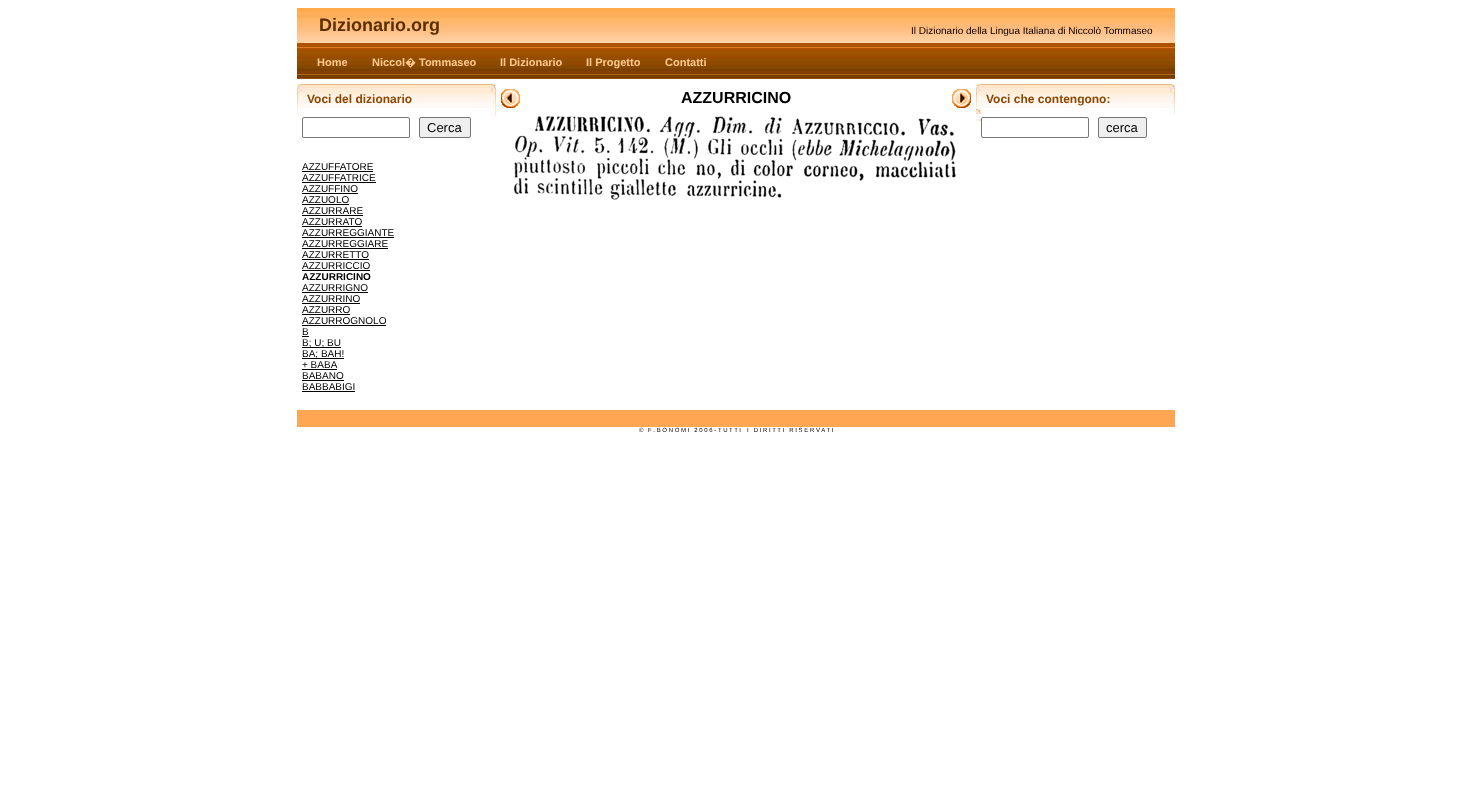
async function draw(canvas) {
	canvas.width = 1472;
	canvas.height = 791;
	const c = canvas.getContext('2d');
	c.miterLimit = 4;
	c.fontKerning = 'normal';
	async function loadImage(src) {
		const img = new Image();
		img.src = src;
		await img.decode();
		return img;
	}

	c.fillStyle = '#fff';
	c.fillRect(0, 0, 1472, 791);
	c.drawImage(await loadImage('img1.png'), 297, 8, 878, 35);
	c.font = 'bold 18px Liberation Sans';
	c.fillStyle = '#592f00';
	c.fillText('Dizionario.org', 319, 31);
	c.font = '10px Liberation Sans';
	c.fillStyle = '#000';
	c.fillText('Il Dizionario della Lingua Italiana di Niccolò Tommaseo', 911, 34);
	c.drawImage(await loadImage('img2.png'), 297, 43, 878, 36);
	c.font = 'bold 11px Liberation Sans';
	c.fillStyle = '#ffca92';
	c.fillText('Home', 317, 66);
	c.fillText('Niccol', 372, 66);
	c.font = 'bold 11px Noto Sans';
	c.fillText('�', 405, 66);
	c.font = 'bold 11px Liberation Sans';
	for (const [text, x, y] of [
		['Tommaseo', 419, 66],
		['Il Dizionario', 500, 66],
		['Il Progetto', 586, 66],
		['Contatti', 665, 66],
	]) {
		c.fillText(text, x, y);
	}
	c.drawImage(await loadImage('img3.png'), 297, 84, 5, 36);
	c.drawImage(await loadImage('img4.png'), 302, 84, 189, 24);
	c.font = 'bold 12px Liberation Sans';
	c.fillStyle = '#8c4700';
	c.fillText('Voci del dizionario', 307, 103);
	c.beginPath();
	c.roundRect(302.5, 117.5, 107, 20, 1.5);
	c.strokeStyle = '#767676';
	c.stroke();
	c.fillStyle = '#efefef';
	c.beginPath();
	c.roundRect(419.5, 117.5, 51, 20, 1.5);
	c.fill();
	c.stroke();
	c.font = '13px Liberation Sans';
	c.fillStyle = '#000';
	c.fillText('Cerca', 427, 132);
	c.font = '10px Liberation Sans';
	c.fillText('AZZUFFATORE', 302, 170);
	c.fillRect(302, 171, 71, 1);
	c.fillText('AZZUFFATRICE', 302, 181);
	c.fillRect(302, 182, 74, 1);
	c.fillText('AZZUFFINO', 302, 192);
	c.fillRect(302, 193, 56, 1);
	c.fillText('AZZUOLO', 302, 203);
	c.fillRect(302, 204, 47, 1);
	c.fillText('AZZURRARE', 302, 214);
	c.fillRect(302, 215, 61, 1);
	c.fillText('AZZURRATO', 302, 225);
	c.fillRect(302, 226, 60, 1);
	c.fillText('AZZURREGGIANTE', 302, 236);
	c.fillRect(302, 237, 92, 1);
	c.fillText('AZZURREGGIARE', 302, 247);
	c.fillRect(302, 248, 86, 1);
	c.fillText('AZZURRETTO', 302, 258);
	c.fillRect(302, 259, 67, 1);
	c.fillText('AZZURRICCIO', 302, 269);
	c.fillRect(302, 270, 68, 1);
	c.font = 'bold 10px Liberation Sans';
	c.fillText('AZZURRICINO', 302, 280);
	c.font = '10px Liberation Sans';
	c.fillText('AZZURRIGNO', 302, 291);
	c.fillRect(302, 292, 66, 1);
	c.fillText('AZZURRINO', 302, 302);
	c.fillRect(302, 303, 58, 1);
	c.fillText('AZZURRO', 302, 313);
	c.fillRect(302, 314, 48, 1);
	c.fillText('AZZURROGNOLO', 302, 324);
	c.fillRect(302, 325, 84, 1);
	c.fillText('B', 302, 335);
	c.fillRect(302, 336, 7, 1);
	c.fillRect(302, 347, 39, 1);
	c.fillText('B; U; BU', 302, 346);
	c.fillRect(302, 358, 42, 1);
	c.fillText('BA; BAH!', 302, 357);
	c.fillText('+ BABA', 302, 368);
	c.fillRect(302, 369, 35, 1);
	c.fillText('BABANO', 302, 379);
	c.fillRect(302, 380, 42, 1);
	c.fillText('BABBABIGI', 302, 390);
	c.fillRect(302, 391, 53, 1);
	c.drawImage(await loadImage('img5.png'), 491, 84, 5, 33);
	c.drawImage(await loadImage('img6.png'), 501, 89, 19, 19);
	c.font = 'bold 16px Liberation Sans';
	c.fillText('AZZURRICINO', 681, 103);
	c.drawImage(await loadImage('img7.png'), 952, 89, 19, 19);
	c.drawImage(await loadImage('img8.png'), 513, 116, 443, 84);
	c.drawImage(await loadImage('img9.png'), 976, 84, 5, 25);
	c.drawImage(await loadImage('img10.png'), 976, 109, 5, 12);
	c.fillStyle = '#fff';
	c.fillRect(976, 114, 5, 5);
	c.drawImage(await loadImage('img4.png'), 981, 84, 189, 24);
	c.font = 'bold 12px Liberation Sans';
	c.fillStyle = '#8c4700';
	c.fillText('Voci che contengono:', 986, 103);
	c.beginPath();
	c.roundRect(981.5, 117.5, 107, 20, 1.5);
	c.stroke();
	c.fillStyle = '#efefef';
	c.beginPath();
	c.roundRect(1098.5, 117.5, 48, 20, 1.5);
	c.fill();
	c.stroke();
	c.font = '13px Liberation Sans';
	c.fillStyle = '#000';
	c.fillText('cerca', 1106, 132);
	c.drawImage(await loadImage('img11.png'), 1170, 84, 5, 30);
	c.fillStyle = '#ffa652';
	c.fillRect(297, 410, 878, 17);
	c.font = '6px Liberation Sans';
	c.fillStyle = '#000';
	for (const [text, x, y] of [
		['©', 639, 432],
		['F . B O N O M I   2 0 0 6 - T U T T I', 648, 432],
		['I   D I R I T T I   R I S E R V A T I', 747, 432],
	]) {
		c.fillText(text, x, y);
	}
}

draw(document.querySelector('canvas'));
